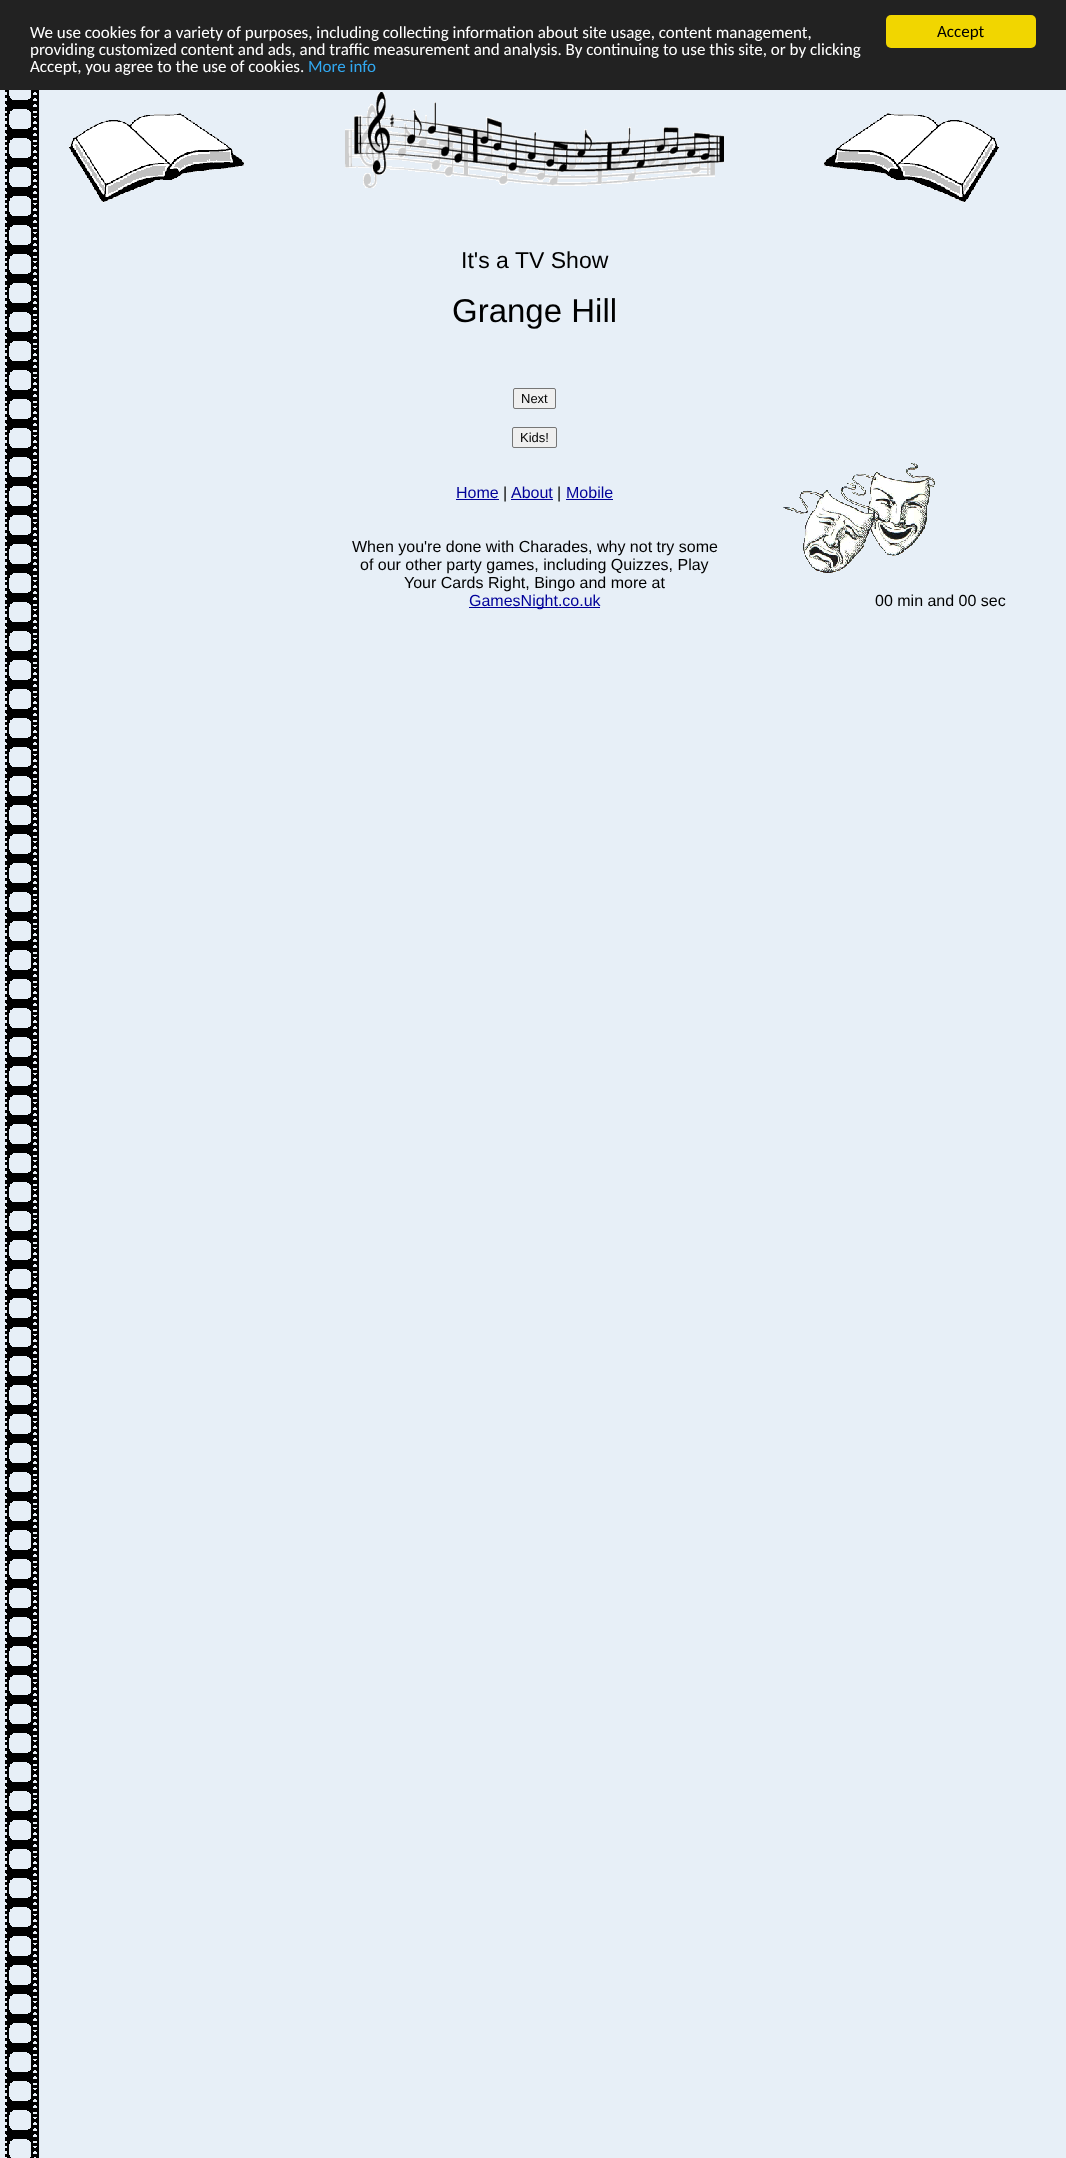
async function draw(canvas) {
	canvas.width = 1066;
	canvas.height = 2158;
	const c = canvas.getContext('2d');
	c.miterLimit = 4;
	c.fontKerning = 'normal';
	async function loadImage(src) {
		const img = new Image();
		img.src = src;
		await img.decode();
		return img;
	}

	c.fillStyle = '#e7eff7';
	c.fillRect(0, 0, 1066, 2158);
	c.drawImage(await loadImage('img1.png'), 5, 90, 34, 2068);
	c.fillStyle = '#222';
	c.fillRect(0, 0, 1066, 90);
	c.font = '17px Carlito';
	c.fillStyle = '#fff';
	for (const [text, x, y] of [
		['We use cookies for a variety of purposes, including collecting information about site usage, content management,', 30, 38],
		['providing customized content and ads, and traffic measurement and analysis. By continuing to use this site, or by clicking', 30, 55],
		['Accept, you agree to the use of cookies.', 30, 72],
	]) {
		c.fillText(text, x, y);
	}
	c.fillStyle = '#31a8f0';
	c.fillText('More info', 308, 72);
	c.fillStyle = '#f1d600';
	c.beginPath();
	c.roundRect(886, 15, 150, 33, 5);
	c.fill();
	c.fillStyle = '#000';
	c.fillText('Accept', 937, 37);
	c.drawImage(await loadImage('img2.png'), 69, 113, 175, 90);
	c.drawImage(await loadImage('img3.png'), 345, 92, 379, 96);
	c.drawImage(await loadImage('img4.png'), 824, 113, 175, 90);
	c.font = '23px Liberation Sans';
	c.fillText('It\'s a', 461, 268);
	c.fillText('TV Show', 515, 268);
	c.font = '33px Liberation Sans';
	c.fillText('Grange Hill', 452, 322);
	c.fillStyle = '#efefef';
	c.beginPath();
	c.roundRect(513.5, 388.5, 42, 20, 1.5);
	c.fill();
	c.strokeStyle = '#767676';
	c.stroke();
	c.font = '13px Liberation Sans';
	c.fillStyle = '#000';
	c.fillText('Next', 521, 403);
	c.fillStyle = '#efefef';
	c.beginPath();
	c.roundRect(512.5, 427.5, 44, 20, 1.5);
	c.fill();
	c.stroke();
	c.fillStyle = '#000';
	c.fillText('Kids!', 520, 442);
	c.font = '16px Liberation Sans';
	c.fillStyle = '#009';
	c.fillText('Home', 456, 498);
	c.fillRect(456, 499, 43, 1);
	c.fillStyle = '#000';
	c.fillText('|', 503, 498);
	c.fillStyle = '#009';
	c.fillText('About', 511, 498);
	c.fillRect(511, 499, 42, 1);
	c.fillStyle = '#000';
	c.fillText('|', 557, 498);
	c.fillStyle = '#009';
	c.fillText('Mobile', 566, 498);
	c.fillRect(566, 499, 47, 1);
	c.fillStyle = '#000';
	for (const [text, x, y] of [
		['When you\'re done with Charades, why not try some', 352, 552],
		['of our other party games, including Quizzes, Play', 360, 570],
		['Your Cards Right, Bingo and more at', 404, 588],
	]) {
		c.fillText(text, x, y);
	}
	c.fillStyle = '#009';
	c.fillRect(469, 607, 131, 1);
	c.fillText('GamesNight.co.uk', 469, 606);
	c.drawImage(await loadImage('img5.png'), 783, 463, 152, 110);
	c.fillStyle = '#000';
	c.fillText('00 min and 00 sec', 875, 606);
}

draw(document.querySelector('canvas'));
